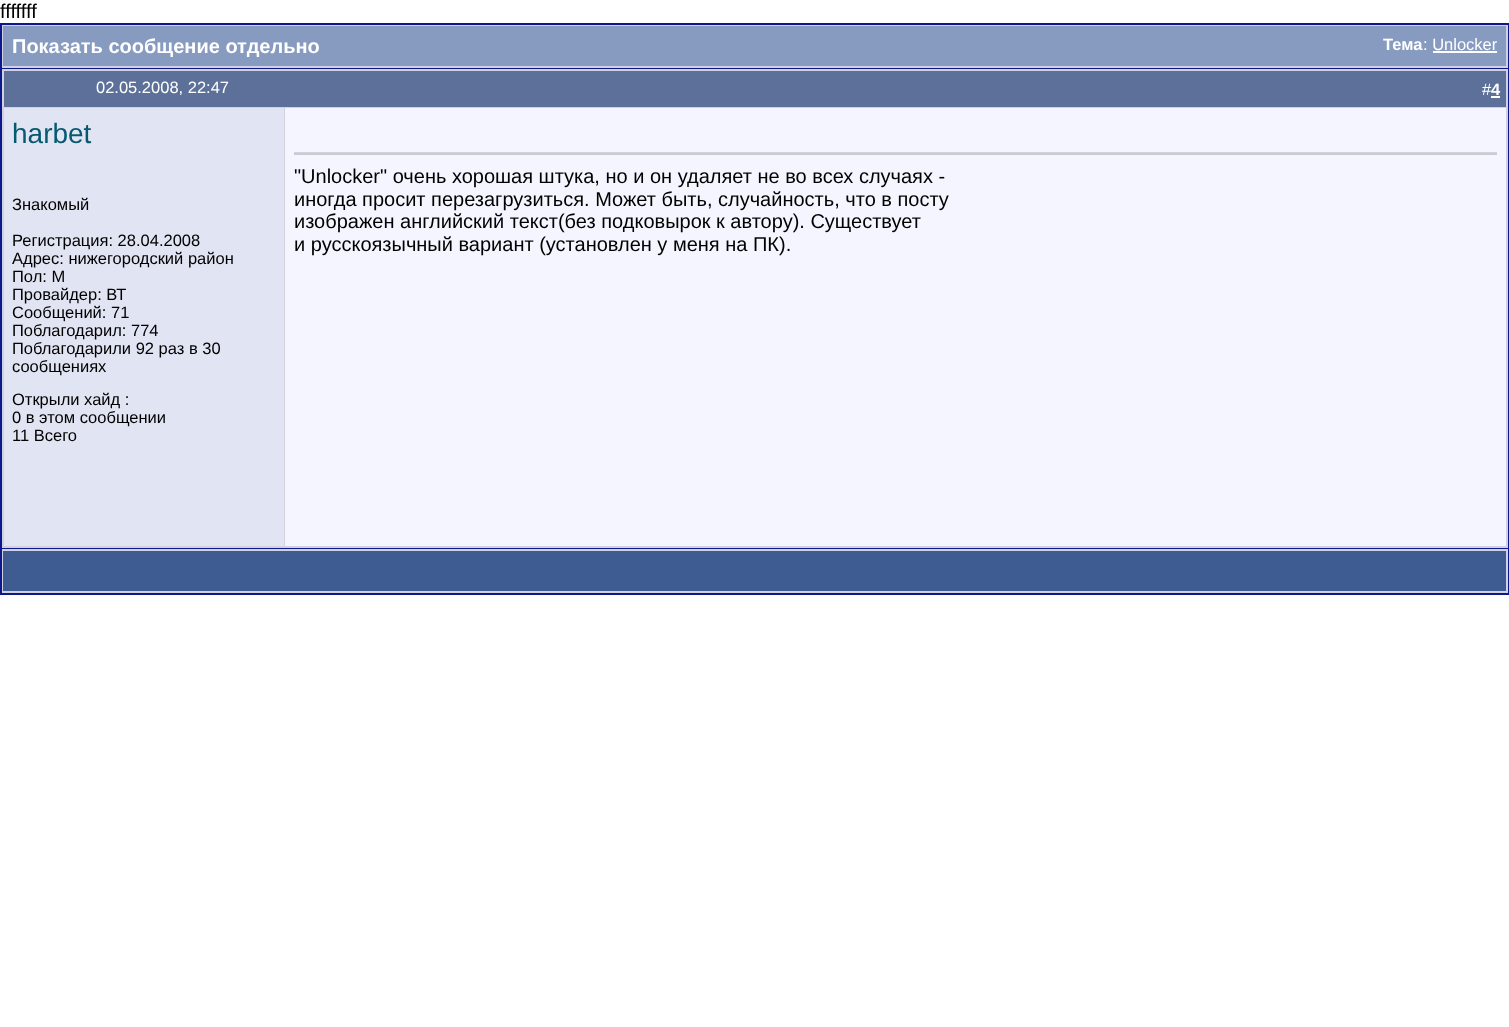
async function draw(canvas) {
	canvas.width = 1509;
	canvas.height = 1027;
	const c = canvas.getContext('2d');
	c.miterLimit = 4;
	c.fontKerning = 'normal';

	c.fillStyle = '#fff';
	c.fillRect(0, 0, 1509, 1027);
	c.font = '20px Liberation Sans';
	c.fillStyle = '#000';
	c.fillText('fffffff', 0, 18);
	for (const [x, y, w, h, color] of [
		[2, 25, 1506, 43, '#d1d1e1'],
		[0, 23, 1509, 2, '#0b198c'],
		[1508, 23, 1, 45, '#0b198c'],
		[0, 23, 2, 45, '#0b198c'],
		[3, 26, 1503, 40, '#869bbf'],
	]) {
		c.fillStyle = color;
		c.fillRect(x, y, w, h);
	}
	c.font = 'bold 20px Liberation Sans';
	c.fillStyle = '#fff';
	c.fillText('Показать сообщение отдельно', 12, 53);
	c.font = 'bold 16.5px Liberation Sans';
	c.fillText('Тема', 1383, 50);
	c.font = '16.5px Liberation Sans';
	c.fillText(': Unlocker', 1423, 50);
	c.fillRect(1433, 51, 64, 2);
	c.strokeStyle = '#0b198c';
	c.lineWidth = 2;
	c.strokeRect(1, 69, 1507, 479);
	for (const [x, y, w, h, color] of [
		[4, 71, 1502, 36, '#5c7099'],
		[2, 69, 1506, 2, '#d1d1e1'],
		[2, 107, 283, 1, '#d1d1e1'],
		[2, 69, 2, 435, '#d1d1e1'],
	]) {
		c.fillStyle = color;
		c.fillRect(x, y, w, h);
	}
	c.fillStyle = '#fff';
	c.fillText('02.05.2008, 22:47', 96, 93);
	c.fillStyle = '#d1d1e1';
	c.fillRect(1506, 69, 2, 479);
	c.fillRect(285, 107, 1223, 1);
	c.fillStyle = '#fff';
	c.fillText('#', 1482, 95);
	c.font = 'bold 16.5px Liberation Sans';
	c.fillText('4', 1491, 95);
	for (const [x, y, w, h, color] of [
		[1491, 96, 9, 2, '#fff'],
		[4, 108, 280, 438, '#e1e4f2'],
		[284, 108, 1, 440, '#d1d1e1'],
	]) {
		c.fillStyle = color;
		c.fillRect(x, y, w, h);
	}
	c.font = '28px Liberation Sans';
	c.fillStyle = '#055970';
	c.fillText('harbet', 12, 143);
	c.font = '16.5px Liberation Sans';
	c.fillStyle = '#000';
	for (const [text, x, y] of [
		['Знакомый', 12, 210],
		['Регистрация: 28.04.2008', 12, 246],
		['Адрес: нижегородский район', 12, 264],
		['Пол: M', 12, 282],
		['Провайдер: ВТ', 12, 300],
		['Сообщений: 71', 12, 318],
		['Поблагодарил: 774', 12, 336],
		['Поблагодарили 92 раз в 30', 12, 354],
		['сообщениях', 12, 372],
		['Открыли хайд :', 12, 405],
		['0 в этом сообщении', 12, 423],
		['11 Всего', 12, 441],
	]) {
		c.fillText(text, x, y);
	}
	for (const [x, y, w, h, color] of [
		[285, 108, 1221, 438, '#f5f5ff'],
		[294, 152, 1203, 1, '#d1d1e1'],
		[294, 153, 1203, 2, '#ccc'],
	]) {
		c.fillStyle = color;
		c.fillRect(x, y, w, h);
	}
	c.font = '20px Liberation Sans';
	c.fillStyle = '#000';
	for (const [text, x, y] of [
		['"Unlocker" очень хорошая штука, но и он удаляет не во всех случаях -', 294, 183],
		['иногда просит перезагрузиться. Может быть, случайность, что в посту', 294, 206],
		['изображен английский текст(без подковырок к автору). Существует', 294, 228],
		['и русскоязычный вариант (установлен у меня на ПК).', 294, 251],
	]) {
		c.fillText(text, x, y);
	}
	for (const [x, y, w, h, color] of [
		[2, 546, 1506, 2, '#d1d1e1'],
		[2, 504, 2, 44, '#d1d1e1'],
		[2, 549, 1506, 44, '#d1d1e1'],
		[1508, 549, 1, 45, '#0b198c'],
		[0, 593, 1509, 2, '#0b198c'],
		[0, 549, 2, 45, '#0b198c'],
		[3, 551, 1503, 40, '#3e5c92'],
	]) {
		c.fillStyle = color;
		c.fillRect(x, y, w, h);
	}
}

draw(document.querySelector('canvas'));
